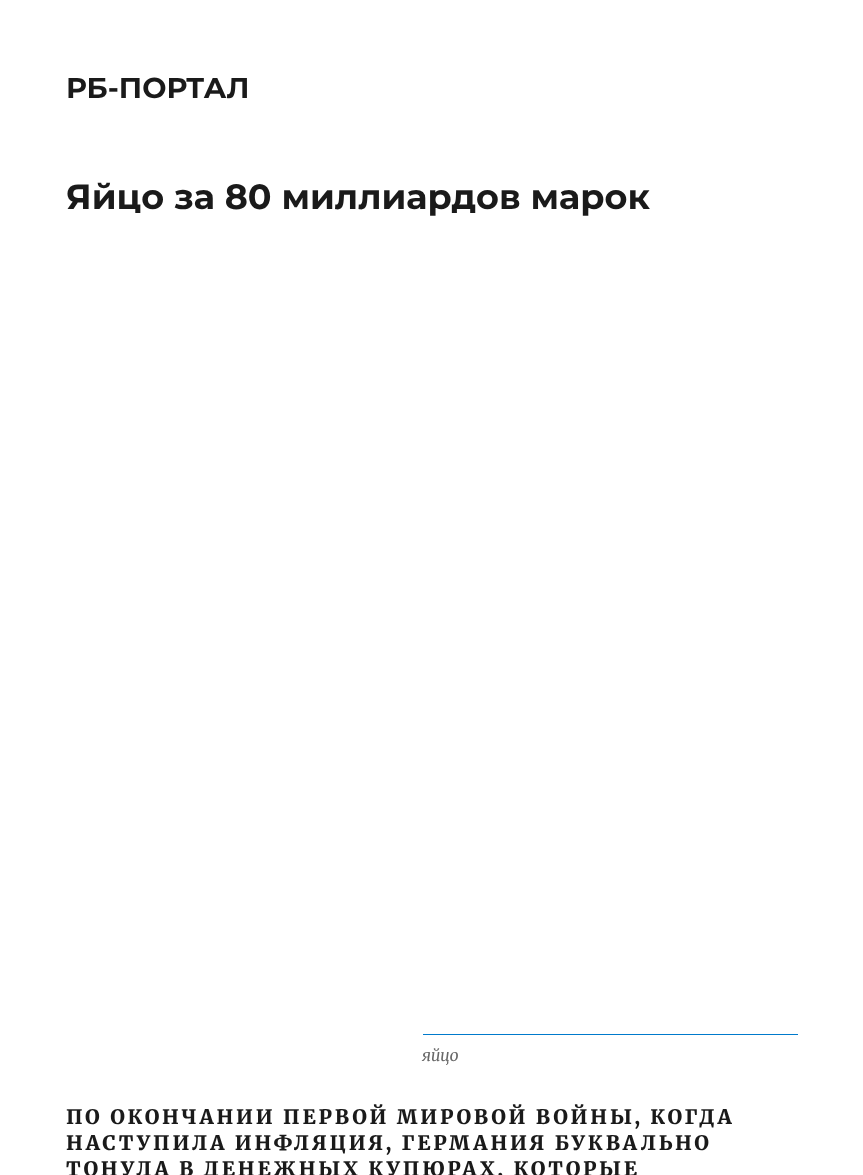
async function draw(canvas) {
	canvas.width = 863;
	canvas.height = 1175;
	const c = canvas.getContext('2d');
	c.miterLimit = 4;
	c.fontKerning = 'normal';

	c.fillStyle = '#fff';
	c.fillRect(0, 0, 863, 1175);
	c.font = 'bold 28.75px Montserrat';
	c.fillStyle = '#1a1a1a';
	c.fillText('РБ-ПОРТАЛ', 66, 98);
	c.font = 'bold 35px Montserrat';
	c.fillText('Яйцо за 80 миллиардов марок', 66, 209);
	c.fillStyle = '#007acc';
	c.beginPath();
	c.moveTo(423, 1034);
	c.lineTo(423, 1035);
	c.lineTo(798, 1035);
	c.lineTo(798, 785);
	c.lineTo(798, 1034);
	c.closePath();
	c.fill();
	c.font = 'italic 16px Merriweather';
	c.fillStyle = '#686868';
	c.fillText('яйцо', 422, 1061);
	c.letterSpacing = '2.8px';
	c.font = '900 20px Merriweather';
	c.fillStyle = '#1a1a1a';
	for (const [text, x, y] of [
		['ПО ОКОНЧАНИИ ПЕРВОЙ МИРОВОЙ ВОЙНЫ, КОГДА', 66, 1124],
		['НАСТУПИЛА ИНФЛЯЦИЯ, ГЕРМАНИЯ БУКВАЛЬНО', 66, 1150],
		['ТОНУЛА В ДЕНЕЖНЫХ КУПЮРАХ, КОТОРЫЕ', 66, 1176],
	]) {
		c.fillText(text, x, y);
	}
}

draw(document.querySelector('canvas'));
